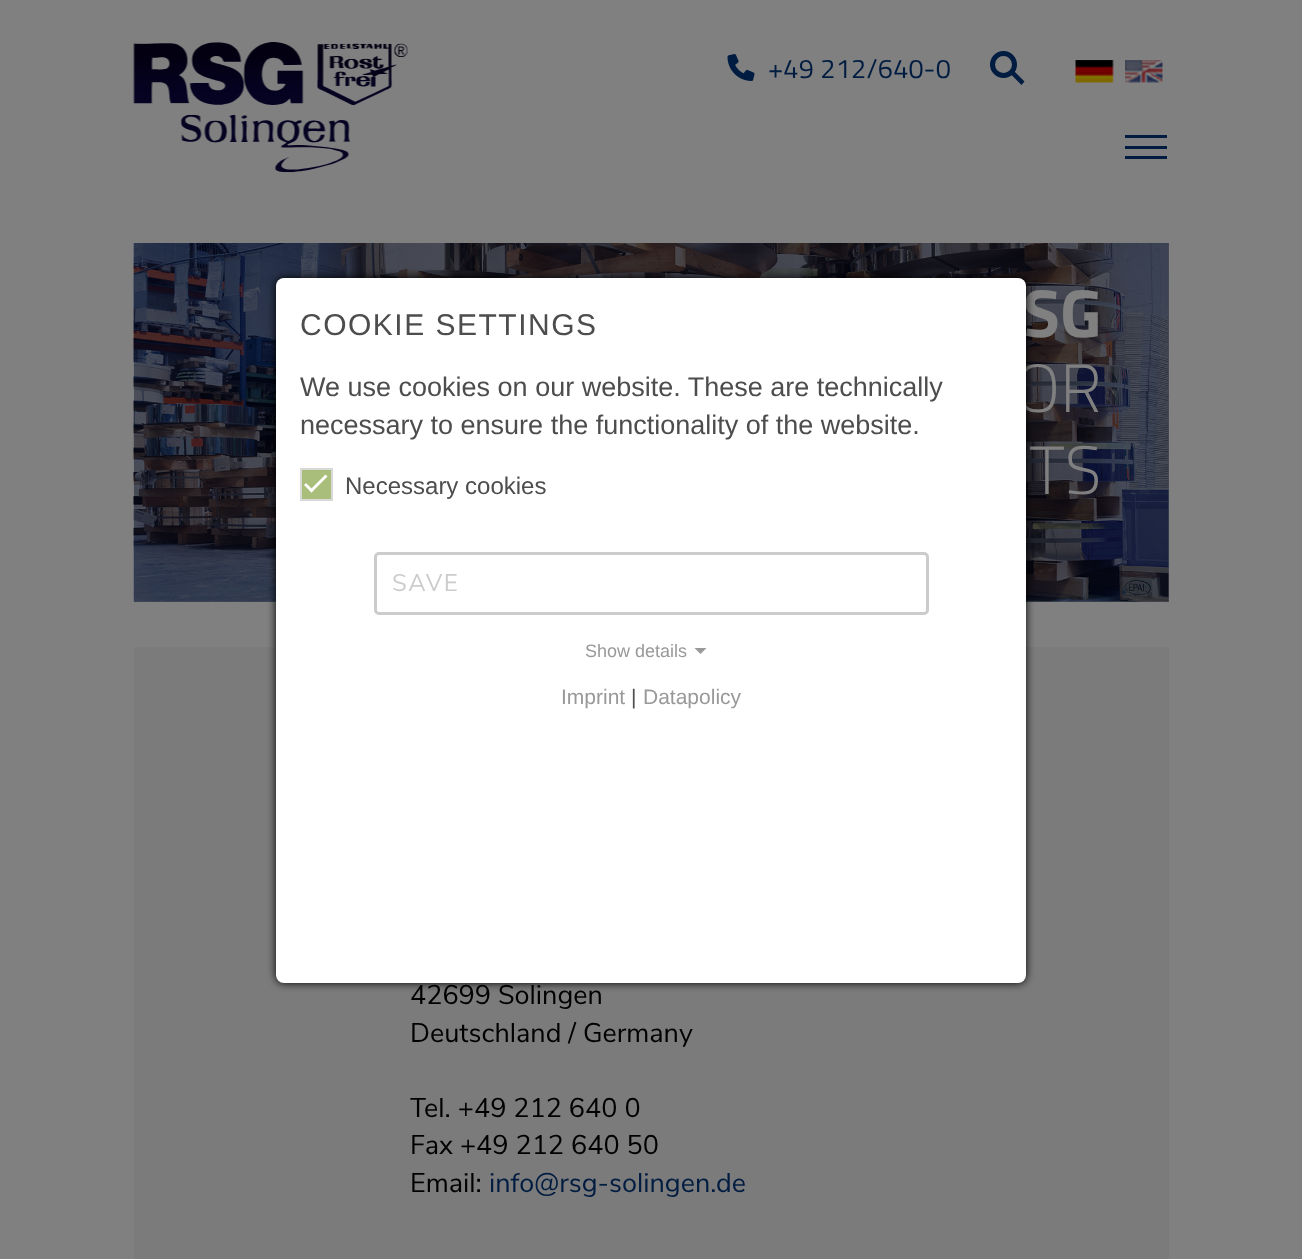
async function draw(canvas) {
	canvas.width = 1302;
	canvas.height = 1259;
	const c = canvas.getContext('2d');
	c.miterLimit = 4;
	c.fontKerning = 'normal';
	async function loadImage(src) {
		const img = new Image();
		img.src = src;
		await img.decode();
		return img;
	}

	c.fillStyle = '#808080';
	c.fillRect(0, 0, 1302, 1259);
	c.fillStyle = '#4d4f59';
	c.fillRect(134, 243, 1035, 359);
	c.drawImage(await loadImage('img1.png'), 133, 42, 275, 131);
	c.drawImage(await loadImage('img2.png'), 727, 54, 28, 27);
	c.letterSpacing = '0.25px';
	c.font = '27px Cairo';
	c.fillStyle = '#001c41';
	c.fillText('+49 212/640-0', 768, 78);
	c.beginPath();
	c.arc(1003.5, 64.5, 11, 0, 2 * Math.PI);
	c.strokeStyle = '#001c41';
	c.lineWidth = 5;
	c.stroke();
	c.beginPath();
	c.moveTo(1024.5, 81.5);
	c.lineTo(1021.5, 85);
	c.lineTo(1011, 74.5);
	c.lineTo(1014, 71);
	c.closePath();
	c.fill();
	c.drawImage(await loadImage('img3.png'), 1075, 60, 39, 23);
	c.drawImage(await loadImage('img4.png'), 1125, 60, 38, 23);
	for (const [x, y, w, h, color] of [
		[1125, 135, 42, 3, '#001c41'],
		[1125, 146, 42, 3, '#001c41'],
		[1125, 156, 42, 3, '#001c41'],
	]) {
		c.fillStyle = color;
		c.fillRect(x, y, w, h);
	}
	c.drawImage(await loadImage('img5.png'), 133, 243, 1036, 359);
	c.letterSpacing = '0px';
	c.font = 'bold 68px Cairo';
	c.fillStyle = '#808080';
	c.fillText('SG', 1023, 337);
	c.font = '300 68px Cairo';
	c.fillText('OR', 1015, 412);
	c.fillText('TS', 1029, 494);
	c.fillStyle = '#7b7b7b';
	c.fillRect(134, 647, 1035, 612);
	c.font = '27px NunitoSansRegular';
	c.fillStyle = '#000';
	for (const [text, x, y] of [
		['42699 Solingen', 410, 1004],
		['Deutschland / Germany', 410, 1042],
		['Tel. +49 212 640 0', 410, 1117],
		['Fax +49 212 640 50', 410, 1154],
		['Email:', 410, 1192],
	]) {
		c.fillText(text, x, y);
	}
	c.fillStyle = '#001c41';
	c.fillText('info@rsg-solingen.de', 489, 1192);
	c.fillStyle = '#000';
	c.filter = 'blur(4px)';
	c.beginPath();
	c.roundRect(276, 278, 750, 705, 8);
	c.fill();
	c.filter = 'none';
	c.fillStyle = '#fff';
	c.beginPath();
	c.roundRect(276, 278, 750, 705, 8);
	c.fill();
	c.letterSpacing = '1.5px';
	c.font = '30px Liberation Sans';
	c.fillStyle = '#4d4d4d';
	c.fillText('COOKIE SETTINGS', 300, 335);
	c.letterSpacing = '0px';
	c.font = '27px Liberation Sans';
	c.fillText('We use cookies on our website. These are technically', 300, 396);
	c.fillText('necessary to ensure the functionality of the website.', 300, 434);
	c.fillStyle = '#a9be7a';
	c.beginPath();
	c.rect(301, 469, 31, 31);
	c.fill();
	c.strokeStyle = '#d9d9d9';
	c.lineWidth = 2;
	c.stroke();
	c.fillStyle = '#fff';
	c.beginPath();
	c.moveTo(325.5, 474.5);
	c.lineTo(327.5, 476.5);
	c.lineTo(311.5, 492.5);
	c.lineTo(309.5, 490.5);
	c.closePath();
	c.fill();
	c.beginPath();
	c.moveTo(306, 483);
	c.lineTo(313.5, 490.5);
	c.lineTo(311.5, 492.5);
	c.lineTo(304, 485);
	c.closePath();
	c.fill();
	c.font = '24px Liberation Sans';
	c.fillStyle = '#4d4d4d';
	c.fillText('Necessary cookies', 345, 494);
	c.beginPath();
	c.roundRect(375.5, 553.5, 552, 60, 3.5);
	c.strokeStyle = '#ccc';
	c.lineWidth = 3;
	c.stroke();
	c.letterSpacing = '1.5px';
	c.font = '24px NunitoSansRegular';
	c.fillStyle = '#ccc';
	c.fillText('SAVE', 392, 591);
	c.letterSpacing = '0px';
	c.font = '18px Liberation Sans';
	c.fillStyle = '#999';
	c.fillText('Show details', 585, 657);
	c.beginPath();
	c.moveTo(694.5, 648);
	c.lineTo(706.5, 648);
	c.lineTo(700.5, 654);
	c.closePath();
	c.fill();
	c.font = '21px Liberation Sans';
	c.fillText('Imprint', 561, 704);
	c.fillStyle = '#4d4d4d';
	c.fillText('|', 631, 704);
	c.fillStyle = '#999';
	c.fillText('Datapolicy', 643, 704);
}

draw(document.querySelector('canvas'));
